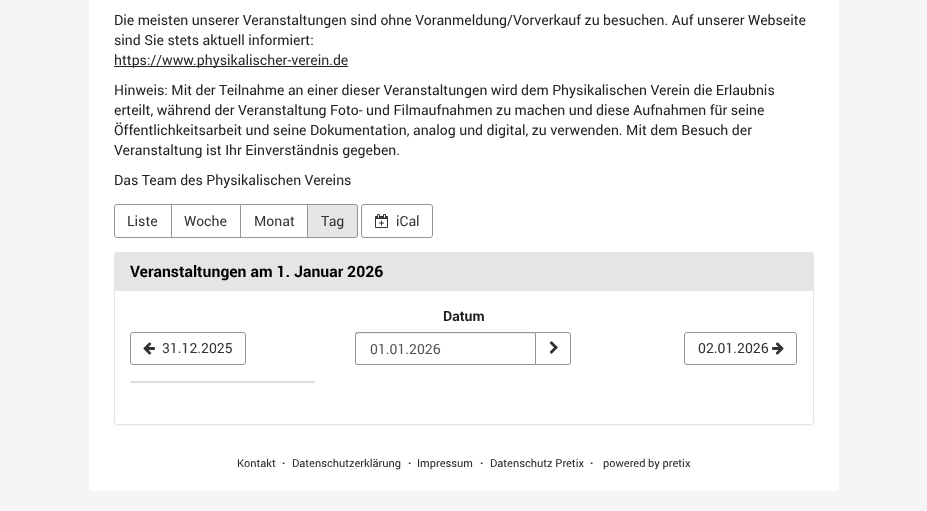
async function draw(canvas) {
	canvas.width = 927;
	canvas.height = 511;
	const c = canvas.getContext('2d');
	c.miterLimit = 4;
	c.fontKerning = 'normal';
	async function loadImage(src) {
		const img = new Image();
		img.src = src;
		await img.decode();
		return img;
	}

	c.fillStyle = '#f5f5f5';
	c.fillRect(0, 0, 927, 511);
	c.fillStyle = '#fff';
	c.beginPath();
	c.roundRect(89, -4, 750, 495, 4);
	c.fill();
	c.font = '14px Roboto';
	c.fillStyle = '#222';
	c.fillText('Die meisten unserer Veranstaltungen sind ohne Voranmeldung/Vorverkauf zu besuchen. Auf unserer Webseite', 114, 25);
	c.fillText('sind Sie stets aktuell informiert:', 114, 45);
	c.fillStyle = '#23282a';
	c.fillRect(114, 66, 234, 1);
	c.fillText('https://www.physikalischer-verein.de', 114, 65);
	c.fillStyle = '#222';
	for (const [text, x, y] of [
		['Hinweis: Mit der Teilnahme an einer dieser Veranstaltungen wird dem Physikalischen Verein die Erlaubnis', 114, 95],
		['erteilt, während der Veranstaltung Foto- und Filmaufnahmen zu machen und diese Aufnahmen für seine', 114, 115],
		['Öffentlichkeitsarbeit und seine Dokumentation, analog und digital, zu verwenden. Mit dem Besuch der', 114, 135],
		['Veranstaltung ist Ihr Einverständnis gegeben.', 114, 155],
		['Das Team des Physikalischen Vereins', 114, 185],
	]) {
		c.fillText(text, x, y);
	}
	c.beginPath();
	c.roundRect(114.5, 204.5, 57, 33, [2.5, 0, 0, 2.5]);
	c.strokeStyle = '#949494';
	c.stroke();
	c.fillStyle = '#333';
	c.fillText('Liste', 127, 226);
	c.strokeRect(171.5, 204.5, 69, 33);
	c.fillText('Woche', 184, 226);
	c.strokeRect(240.5, 204.5, 67, 33);
	c.fillText('Monat', 254, 226);
	c.fillStyle = '#e6e6e6';
	c.beginPath();
	c.roundRect(307.5, 204.5, 50, 33, [0, 2.5, 2.5, 0]);
	c.fill();
	c.stroke();
	c.fillStyle = '#333';
	c.fillText('Tag', 321, 226);
	c.beginPath();
	c.roundRect(361.5, 204.5, 71, 33, 2.5);
	c.stroke();
	c.drawImage(await loadImage('img1.png'), 375, 214, 13, 14);
	c.fillText('iCal', 396, 226);
	c.fillStyle = '#0000000d';
	c.filter = 'blur(0.5px)';
	c.beginPath();
	c.roundRect(114, 253, 700, 173, 3);
	c.fill();
	c.filter = 'none';
	c.fillStyle = '#fff';
	c.beginPath();
	c.roundRect(114.5, 252.5, 699, 172, 2.5);
	c.fill();
	c.strokeStyle = '#e5e5e5';
	c.stroke();
	c.fillStyle = '#e5e5e5';
	c.fillRect(115, 253, 698, 38);
	c.font = 'bold 15.75px Roboto';
	c.fillStyle = '#000';
	c.fillText('Veranstaltungen am 1. Januar 2026', 130, 277);
	c.beginPath();
	c.roundRect(130.5, 332.5, 115, 32, 2.5);
	c.strokeStyle = '#949494';
	c.stroke();
	c.drawImage(await loadImage('img2.png'), 143, 342, 12, 13);
	c.font = '14px Roboto';
	c.fillStyle = '#333';
	c.fillText('31.12.2025', 162, 353);
	c.font = 'bold 14px Roboto';
	c.fillStyle = '#222';
	c.fillText('Datum', 443, 321);
	c.fillStyle = '#ececec';
	c.beginPath();
	c.moveTo(358, 334);
	c.lineTo(535, 334);
	c.lineTo(535, 333);
	c.lineTo(357, 333);
	c.bezierCurveTo(356, 334, 356, 335, 356, 336);
	c.bezierCurveTo(356, 335, 357, 334, 358, 334);
	c.closePath();
	c.fill();
	c.fillStyle = '#949494';
	c.beginPath();
	c.moveTo(358, 332);
	c.lineTo(535, 332);
	c.lineTo(535, 365);
	c.lineTo(358, 365);
	c.bezierCurveTo(356, 365, 355, 364, 355, 362);
	c.lineTo(355, 335);
	c.bezierCurveTo(355, 333, 356, 332, 358, 332);
	c.closePath();
	c.moveTo(358, 333);
	c.lineTo(535, 333);
	c.lineTo(535, 364);
	c.lineTo(358, 364);
	c.bezierCurveTo(357, 364, 356, 363, 356, 362);
	c.lineTo(356, 335);
	c.bezierCurveTo(356, 334, 357, 333, 358, 333);
	c.closePath();
	c.fill('evenodd');
	c.font = '14px Roboto';
	c.fillStyle = '#555';
	c.fillText('01.01.2026', 370, 354);
	c.beginPath();
	c.roundRect(535.5, 332.5, 35, 32, [0, 2.5, 2.5, 0]);
	c.stroke();
	c.drawImage(await loadImage('img3.png'), 549, 341, 9, 13);
	c.beginPath();
	c.roundRect(684.5, 332.5, 112, 32, 2.5);
	c.stroke();
	c.fillStyle = '#333';
	c.fillText('02.01.2026', 698, 353);
	c.drawImage(await loadImage('img4.png'), 772, 342, 12, 13);
	c.fillStyle = '#ddd';
	c.fillRect(130, 381, 185, 2);
	c.font = '11px Roboto';
	c.fillStyle = '#23282a';
	c.fillText('Kontakt', 237, 467);
	c.font = 'bold 11px Roboto';
	c.fillStyle = '#222';
	c.fillText('·', 282, 467);
	c.font = '11px Roboto';
	c.fillStyle = '#23282a';
	c.fillText('Datenschutzerklärung', 292, 467);
	c.font = 'bold 11px Roboto';
	c.fillStyle = '#222';
	c.fillText('·', 408, 467);
	c.font = '11px Roboto';
	c.fillStyle = '#23282a';
	c.fillText('Impressum', 417, 467);
	c.font = 'bold 11px Roboto';
	c.fillStyle = '#222';
	c.fillText('·', 480, 467);
	c.font = '11px Roboto';
	c.fillStyle = '#23282a';
	c.fillText('Datenschutz Pretix', 490, 467);
	c.font = 'bold 11px Roboto';
	c.fillStyle = '#222';
	c.fillText('·', 590, 467);
	c.font = '11px Roboto';
	c.fillStyle = '#23282a';
	c.fillText('powered by pretix', 603, 467);
}

draw(document.querySelector('canvas'));
